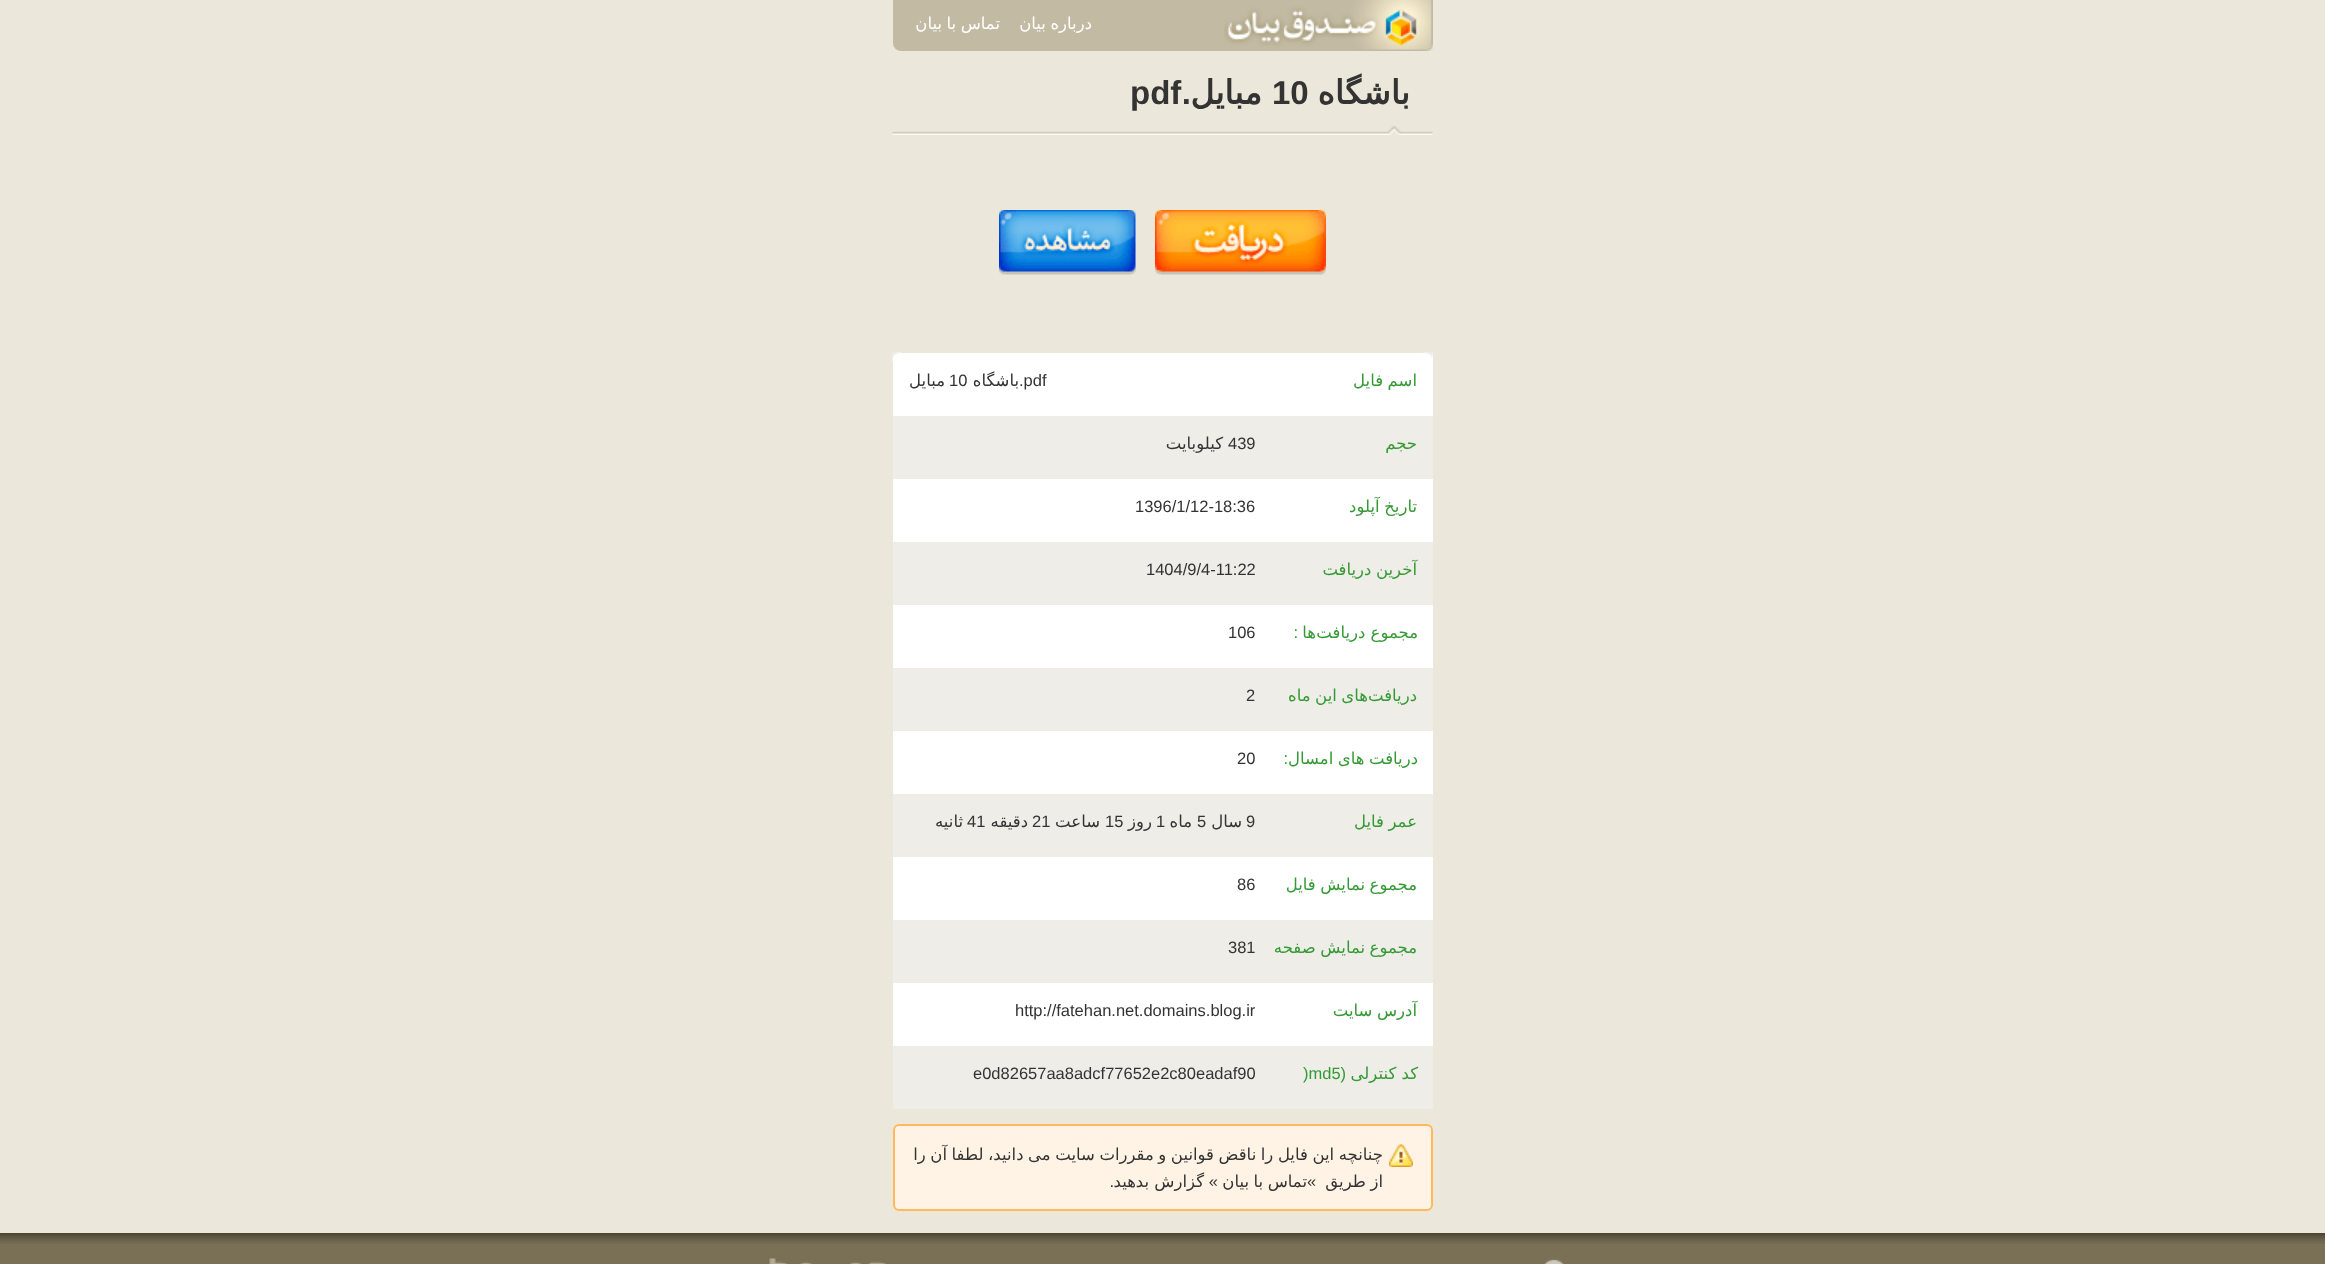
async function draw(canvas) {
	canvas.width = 2325;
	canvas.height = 1264;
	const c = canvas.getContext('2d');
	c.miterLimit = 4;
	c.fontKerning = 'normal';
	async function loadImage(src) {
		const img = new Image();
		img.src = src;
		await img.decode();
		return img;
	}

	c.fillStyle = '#ebe7da';
	c.fillRect(0, 0, 2325, 1264);
	c.fillStyle = '#c2baa2';
	c.beginPath();
	c.roundRect(893, 0, 540, 51, [0, 0, 8, 8]);
	c.fill();
	c.drawImage(await loadImage('img1.png'), 1224, 0, 209, 51);
	c.wordSpacing = '-0.7px';
	c.direction = 'rtl';
	c.font = '16.5px DejaVu Sans';
	c.fillStyle = '#fff';
	c.fillText('درباره بیان', 1092, 29);
	c.fillText('تماس با بیان', 1000, 29);
	c.drawImage(await loadImage('img2.png'), 892, 126, 541, 9);
	c.wordSpacing = '0px';
	c.font = 'bold 33px DejaVu Sans';
	c.fillStyle = '#333';
	c.fillText('باشگاه', 1410, 104);
	c.direction = 'ltr';
	c.font = 'bold 33px Liberation Sans';
	c.fillText('10', 1272, 104);
	c.direction = 'rtl';
	c.font = 'bold 33px DejaVu Sans';
	c.fillText('مبایل', 1262, 104);
	c.font = 'bold 33px Liberation Sans';
	c.fillText('.', 1191, 104);
	c.direction = 'ltr';
	c.fillText('pdf', 1130, 104);
	c.drawImage(await loadImage('img3.png'), 1155, 210, 171, 65);
	c.drawImage(await loadImage('img4.png'), 999, 210, 137, 65);
	c.fillStyle = '#fff';
	c.fillRect(893, 353, 540, 693);
	c.drawImage(await loadImage('img5.png'), 1423, 352, 10, 6);
	c.drawImage(await loadImage('img6.png'), 892, 352, 10, 10);
	c.wordSpacing = '-0.7px';
	c.direction = 'rtl';
	c.font = '16.5px DejaVu Sans';
	c.fillStyle = '#393';
	c.fillText('اسم فایل', 1417, 386);
	c.wordSpacing = '0px';
	c.direction = 'ltr';
	c.font = '16.5px Liberation Sans';
	c.fillStyle = '#333';
	c.fillText('.pdf', 1019, 386);
	c.direction = 'rtl';
	c.font = '16.5px DejaVu Sans';
	c.fillText('باشگاه', 1019, 386);
	c.direction = 'ltr';
	c.font = '16.5px Liberation Sans';
	c.fillText('10', 949, 386);
	c.direction = 'rtl';
	c.font = '16.5px DejaVu Sans';
	c.fillText('مبایل', 945, 386);
	c.fillStyle = '#eeede7';
	c.fillRect(893, 416, 540, 63);
	c.fillStyle = '#393';
	c.fillText('حجم', 1417, 449);
	c.direction = 'ltr';
	c.font = '16.5px Liberation Sans';
	c.fillStyle = '#333';
	c.fillText('439', 1228, 449);
	c.direction = 'rtl';
	c.font = '16.5px DejaVu Sans';
	c.fillText('کیلوبایت', 1223, 449);
	c.wordSpacing = '-0.7px';
	c.fillStyle = '#393';
	c.fillText('تاریخ آپلود', 1417, 512);
	c.wordSpacing = '0px';
	c.direction = 'ltr';
	c.font = '16.5px Liberation Sans';
	c.fillStyle = '#333';
	c.fillText('1396/1/12-18:36', 1135, 512);
	c.fillStyle = '#eeede7';
	c.fillRect(893, 542, 540, 63);
	c.wordSpacing = '-0.7px';
	c.direction = 'rtl';
	c.font = '16.5px DejaVu Sans';
	c.fillStyle = '#393';
	c.fillText('آخرین دریافت', 1417, 575);
	c.wordSpacing = '0px';
	c.direction = 'ltr';
	c.font = '16.5px Liberation Sans';
	c.fillStyle = '#333';
	c.fillText('1404/9/4-11:22', 1146, 575);
	c.direction = 'rtl';
	c.font = '16.5px DejaVu Sans';
	c.fillStyle = '#393';
	c.fillText('مجموع دریافت', 1418, 638);
	c.fillText('ها', 1316, 638);
	c.font = '16.5px Liberation Sans';
	c.fillText(':', 1298, 638);
	c.direction = 'ltr';
	c.fillStyle = '#333';
	c.fillText('106', 1228, 638);
	c.fillStyle = '#eeede7';
	c.fillRect(893, 668, 540, 63);
	c.direction = 'rtl';
	c.font = '16.5px DejaVu Sans';
	c.fillStyle = '#393';
	c.fillText('دریافت', 1417, 701);
	c.wordSpacing = '-0.7px';
	c.fillText('های این ماه', 1368, 701);
	c.wordSpacing = '0px';
	c.direction = 'ltr';
	c.font = '16.5px Liberation Sans';
	c.fillStyle = '#333';
	c.fillText('2', 1246, 701);
	c.wordSpacing = '-0.7px';
	c.direction = 'rtl';
	c.font = '16.5px DejaVu Sans';
	c.fillStyle = '#393';
	c.fillText('دریافت های امسال', 1418, 764);
	c.wordSpacing = '0px';
	c.font = '16.5px Liberation Sans';
	c.fillText(':', 1288, 764);
	c.direction = 'ltr';
	c.fillStyle = '#333';
	c.fillText('20', 1237, 764);
	c.fillStyle = '#eeede7';
	c.fillRect(893, 794, 540, 63);
	c.wordSpacing = '-0.7px';
	c.direction = 'rtl';
	c.font = '16.5px DejaVu Sans';
	c.fillStyle = '#393';
	c.fillText('عمر فایل', 1417, 827);
	c.wordSpacing = '0px';
	c.direction = 'ltr';
	c.font = '16.5px Liberation Sans';
	c.fillStyle = '#333';
	c.fillText('9', 1246, 827);
	c.direction = 'rtl';
	c.font = '16.5px DejaVu Sans';
	c.fillText('سال', 1242, 827);
	c.direction = 'ltr';
	c.font = '16.5px Liberation Sans';
	c.fillText('5', 1197, 827);
	c.direction = 'rtl';
	c.font = '16.5px DejaVu Sans';
	c.fillText('ماه', 1192, 827);
	c.direction = 'ltr';
	c.font = '16.5px Liberation Sans';
	c.fillText('1', 1156, 827);
	c.direction = 'rtl';
	c.font = '16.5px DejaVu Sans';
	c.fillText('روز', 1152, 827);
	c.direction = 'ltr';
	c.font = '16.5px Liberation Sans';
	c.fillText('15', 1105, 827);
	c.direction = 'rtl';
	c.font = '16.5px DejaVu Sans';
	c.fillText('ساعت', 1100, 827);
	c.direction = 'ltr';
	c.font = '16.5px Liberation Sans';
	c.fillText('21', 1032, 827);
	c.direction = 'rtl';
	c.font = '16.5px DejaVu Sans';
	c.fillText('دقیقه', 1028, 827);
	c.direction = 'ltr';
	c.font = '16.5px Liberation Sans';
	c.fillText('41', 967, 827);
	c.direction = 'rtl';
	c.font = '16.5px DejaVu Sans';
	c.fillText('ثانیه', 963, 827);
	c.wordSpacing = '-0.7px';
	c.fillStyle = '#393';
	c.fillText('مجموع نمایش فایل', 1417, 890);
	c.wordSpacing = '0px';
	c.direction = 'ltr';
	c.font = '16.5px Liberation Sans';
	c.fillStyle = '#333';
	c.fillText('86', 1237, 890);
	c.fillStyle = '#eeede7';
	c.fillRect(893, 920, 540, 63);
	c.wordSpacing = '-0.7px';
	c.direction = 'rtl';
	c.font = '16.5px DejaVu Sans';
	c.fillStyle = '#393';
	c.fillText('مجموع نمایش صفحه', 1417, 953);
	c.wordSpacing = '0px';
	c.direction = 'ltr';
	c.font = '16.5px Liberation Sans';
	c.fillStyle = '#333';
	c.fillText('381', 1228, 953);
	c.wordSpacing = '-0.7px';
	c.direction = 'rtl';
	c.font = '16.5px DejaVu Sans';
	c.fillStyle = '#393';
	c.fillText('آدرس سایت', 1417, 1016);
	c.wordSpacing = '0px';
	c.direction = 'ltr';
	c.font = '16.5px Liberation Sans';
	c.fillStyle = '#333';
	c.fillText('http://fatehan.net.domains.blog.ir', 1015, 1016);
	c.fillStyle = '#eeede7';
	c.fillRect(893, 1046, 540, 63);
	c.direction = 'rtl';
	c.font = '16.5px DejaVu Sans';
	c.fillStyle = '#393';
	c.fillText('کد کنترلی', 1418, 1079);
	c.font = '16.5px Liberation Sans';
	c.fillText('(', 1346, 1079);
	c.direction = 'ltr';
	c.fillText(')md5', 1303, 1079);
	c.fillStyle = '#333';
	c.fillText('e0d82657aa8adcf77652e2c80eadaf90', 973, 1079);
	c.fillStyle = '#fff3e5';
	c.beginPath();
	c.roundRect(893, 1124, 540, 87, 6);
	c.fill();
	c.drawImage(await loadImage('img7.png'), 1389, 1144, 24, 23);
	c.beginPath();
	c.roundRect(894, 1125, 538, 85, 5);
	c.strokeStyle = '#ffb85b';
	c.lineWidth = 2;
	c.stroke();
	c.wordSpacing = '-0.7px';
	c.direction = 'rtl';
	c.font = '16.5px DejaVu Sans';
	c.fillStyle = '#333';
	c.fillText('چنانچه اين فايل را ناقض قوانين و مقررات سايت می دانيد، لطفا آن را', 1383, 1160);
	c.fillText('از طریق', 1383, 1187);
	c.wordSpacing = '0px';
	c.direction = 'ltr';
	c.font = '16.5px Liberation Sans';
	c.fillText('«', 1307, 1187);
	c.wordSpacing = '-0.7px';
	c.direction = 'rtl';
	c.font = '16.5px DejaVu Sans';
	c.fillText('تماس با بیان', 1307, 1187);
	c.wordSpacing = '0px';
	c.font = '16.5px Liberation Sans';
	c.fillText('»', 1218, 1187);
	c.font = '16.5px DejaVu Sans';
	c.fillText('گزارش بدهید', 1204, 1187);
	c.font = '16.5px Liberation Sans';
	c.fillText('.', 1114, 1187);
	c.fillStyle = '#797055';
	c.fillRect(0, 1244, 2325, 20);
	c.drawImage(await loadImage('img8.png'), 0, 1233, 2325, 11);
	c.drawImage(await loadImage('img9.png'), 1544, 1259, 20, 5);
	c.drawImage(await loadImage('img10.png'), 769, 1258, 117, 6);
}

draw(document.querySelector('canvas'));
